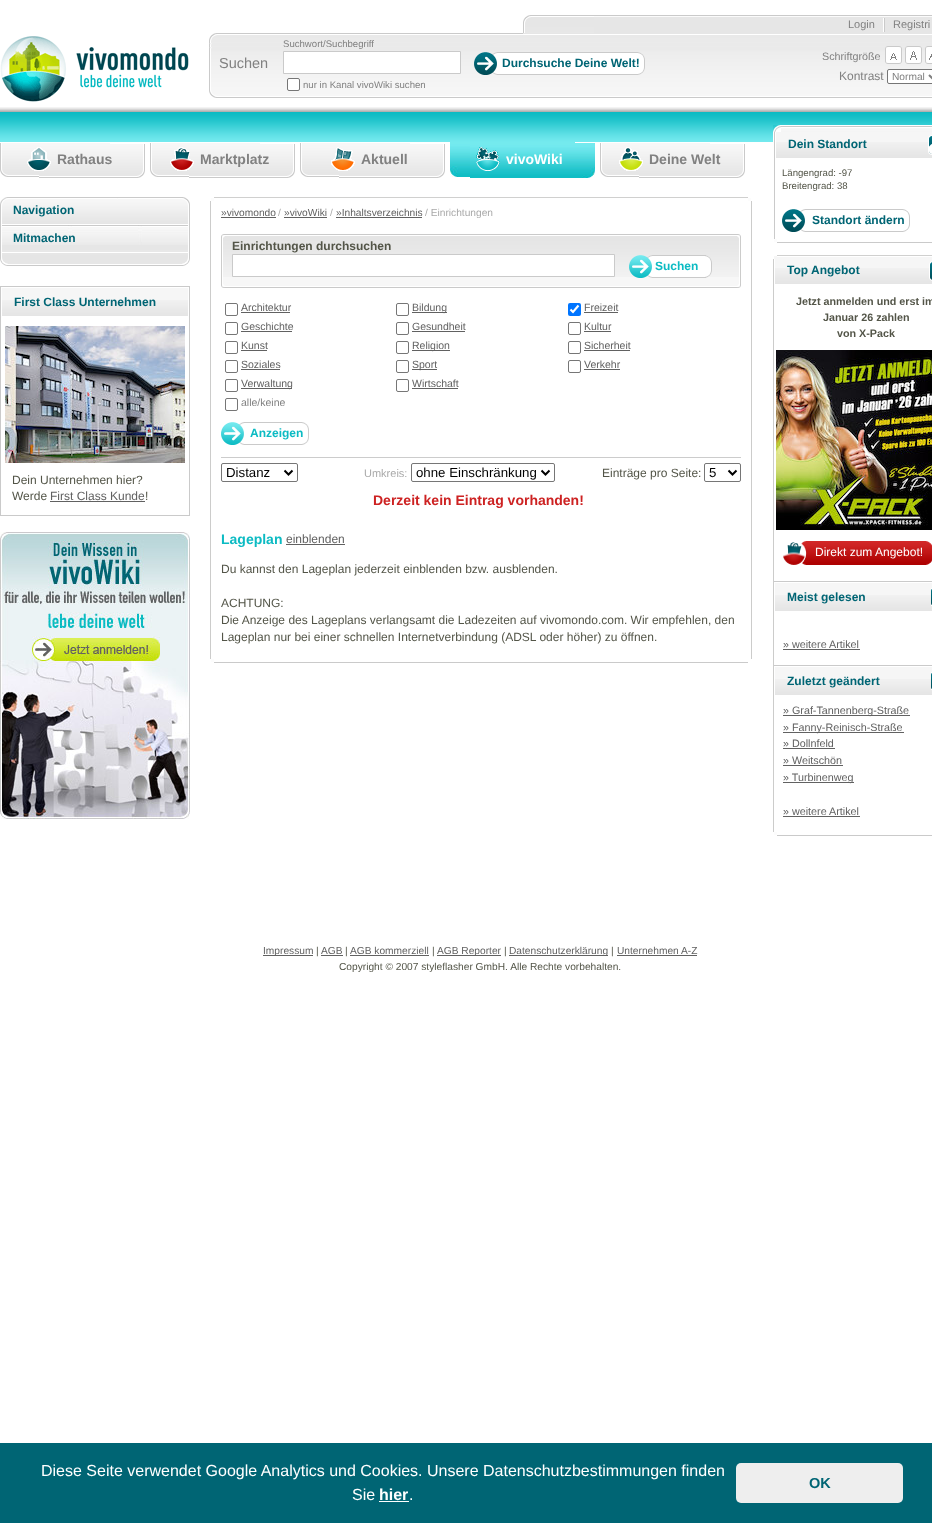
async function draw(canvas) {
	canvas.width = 932;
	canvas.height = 1523;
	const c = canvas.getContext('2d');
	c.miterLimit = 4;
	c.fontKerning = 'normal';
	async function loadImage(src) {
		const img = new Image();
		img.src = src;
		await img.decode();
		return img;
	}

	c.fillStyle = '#fff';
	c.fillRect(0, 0, 932, 1523);
	c.drawImage(await loadImage('img1.png'), 0, 107, 932, 35);
	c.drawImage(await loadImage('img2.png'), 0, 36, 189, 66);
	c.drawImage(await loadImage('img3.png'), 209, 33, 723, 10);
	c.fillStyle = '#e6e6e6';
	c.fillRect(523, 17, 409, 17);
	c.drawImage(await loadImage('img4.png'), 594, 15, 338, 2);
	c.drawImage(await loadImage('img5.png'), 523, 15, 71, 18);
	c.fillStyle = '#fff';
	c.fillRect(883, 18, 1, 14);
	c.font = '11px Liberation Sans';
	c.fillStyle = '#818181';
	c.fillText('Login', 848, 28);
	c.fillStyle = '#cacaca';
	c.fillRect(884, 18, 1, 14);
	c.fillStyle = '#818181';
	c.fillText('Registri', 893, 28);
	c.drawImage(await loadImage('img6.png'), 209, 43, 723, 8);
	c.drawImage(await loadImage('img7.png'), 209, 51, 723, 47);
	c.font = '14.5px Liberation Sans';
	c.fillText('Suchen', 219, 68);
	c.font = '9.6px Liberation Sans';
	c.fillText('Suchwort/Suchbegriff', 283, 47);
	c.fillStyle = '#fff';
	c.beginPath();
	c.rect(283.5, 51.5, 177, 22);
	c.fill();
	c.strokeStyle = '#cacaca';
	c.stroke();
	c.drawImage(await loadImage('img8.png'), 474, 52, 171, 23);
	c.font = 'bold 12px Liberation Sans';
	c.fillStyle = '#006574';
	c.fillText('Durchsuche Deine Welt!', 502, 67);
	c.fillStyle = '#fff';
	c.beginPath();
	c.roundRect(287.5, 78.5, 12, 12, 1.5);
	c.fill();
	c.strokeStyle = '#767676';
	c.stroke();
	c.font = '9.6px Liberation Sans';
	c.fillStyle = '#818181';
	c.fillText('nur in Kanal vivoWiki suchen', 303, 88);
	c.font = '10.75px Liberation Sans';
	c.fillText('Schriftgröße', 822, 60);
	c.drawImage(await loadImage('img9.png'), 885, 46, 17, 18);
	c.drawImage(await loadImage('img10.png'), 905, 46, 17, 18);
	c.drawImage(await loadImage('img11.png'), 925, 46, 7, 18);
	c.font = '12px Liberation Sans';
	c.fillText('Kontrast', 839, 80);
	c.fillStyle = '#fff';
	c.beginPath();
	c.roundRect(887.5, 69.5, 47, 14, 1.5);
	c.fill();
	c.stroke();
	c.beginPath();
	c.moveTo(929, 75);
	c.lineTo(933, 79);
	c.lineTo(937, 75);
	c.strokeStyle = '#808080';
	c.lineWidth = 2;
	c.stroke();
	c.font = '10.2px Liberation Sans';
	c.fillStyle = '#818181';
	c.fillText('Normal', 892, 80);
	c.drawImage(await loadImage('img12.png'), 16, 240, 174, 26);
	c.drawImage(await loadImage('img13.png'), 0, 240, 16, 26);
	c.fillStyle = '#cacaca';
	c.fillRect(189, 224, 1, 16);
	c.fillRect(0, 224, 1, 16);
	c.drawImage(await loadImage('img14.png'), 40, 197, 150, 27);
	c.drawImage(await loadImage('img15.png'), 0, 197, 40, 27);
	c.font = 'bold 12px Liberation Sans';
	c.fillStyle = '#006574';
	c.fillText('Navigation', 13, 214);
	c.fillStyle = '#e6e6e6';
	c.fillRect(2, 245, 186, 5);
	c.drawImage(await loadImage('img16.png'), 2, 225, 186, 20);
	c.fillStyle = '#fff';
	c.fillRect(2, 252, 186, 1);
	c.fillStyle = '#006574';
	c.fillText('Mitmachen', 13, 242);
	c.strokeStyle = '#cacaca';
	c.lineWidth = 1;
	c.strokeRect(0.5, 286.5, 189, 229);
	c.fillStyle = '#f6f6f6';
	c.fillRect(2, 288, 186, 12);
	c.drawImage(await loadImage('img17.png'), 2, 300, 186, 16);
	c.fillStyle = '#006574';
	c.fillText('First Class Unternehmen', 14, 306);
	c.drawImage(await loadImage('img18.png'), 5, 326, 180, 137);
	c.font = '12px Liberation Sans';
	c.fillStyle = '#535548';
	c.fillText('Dein Unternehmen hier?', 12, 484);
	c.fillText('Werde', 12, 500);
	c.fillStyle = '#616161';
	c.fillText('First Class Kunde', 50, 500);
	c.fillRect(50, 501, 95, 1);
	c.fillStyle = '#535548';
	c.fillText('!', 145, 500);
	c.drawImage(await loadImage('img19.png'), 0, 532, 190, 287);
	for (const [x, y, w, h, color] of [
		[211, 198, 3, 3, '#fcfcfc'],
		[748, 198, 3, 3, '#fcfcfc'],
		[214, 197, 534, 1, '#d0d0cf'],
		[210, 201, 1, 458, '#cccccb'],
		[751, 201, 1, 458, '#cccccb'],
	]) {
		c.fillStyle = color;
		c.fillRect(x, y, w, h);
	}
	c.font = '10.2px Liberation Sans';
	c.fillStyle = '#616161';
	c.fillText('»vivomondo', 221, 216);
	c.fillRect(221, 217, 55, 1);
	c.fillStyle = '#a9a9a9';
	c.fillText('/', 278, 216);
	c.fillStyle = '#616161';
	c.fillText('»vivoWiki', 284, 216);
	c.fillRect(284, 217, 43, 1);
	c.fillStyle = '#a9a9a9';
	c.fillText('/', 330, 216);
	c.fillStyle = '#616161';
	c.fillText('»Inhaltsverzeichnis', 336, 216);
	c.fillRect(336, 217, 86, 1);
	c.fillStyle = '#a9a9a9';
	c.fillText('/ Einrichtungen', 425, 216);
	c.drawImage(await loadImage('img20.png'), 221, 234, 4, 4);
	c.drawImage(await loadImage('img21.png'), 737, 234, 4, 4);
	c.drawImage(await loadImage('img22.png'), 225, 234, 512, 4);
	for (const [x, y, w, h, color] of [
		[221, 238, 1, 46, '#cccccb'],
		[740, 238, 1, 46, '#cccccb'],
		[223, 277, 516, 7, '#f7f7f7'],
	]) {
		c.fillStyle = color;
		c.fillRect(x, y, w, h);
	}
	c.drawImage(await loadImage('img23.png'), 223, 238, 516, 39);
	c.font = 'bold 12px Liberation Sans';
	c.fillStyle = '#535548';
	c.fillText('Einrichtungen durchsuchen', 232, 250);
	c.fillStyle = '#fff';
	c.beginPath();
	c.rect(232.5, 254.5, 382, 22);
	c.fill();
	c.stroke();
	c.drawImage(await loadImage('img24.png'), 629, 255, 83, 23);
	c.fillStyle = '#0cbbc3';
	c.fillText('Suchen', 655, 270);
	c.drawImage(await loadImage('img25.png'), 221, 284, 4, 4);
	c.drawImage(await loadImage('img26.png'), 737, 284, 4, 4);
	c.drawImage(await loadImage('img27.png'), 225, 284, 512, 4);
	c.beginPath();
	c.roundRect(225.5, 303.5, 12, 12, 1.5);
	c.strokeStyle = '#767676';
	c.stroke();
	c.font = '10.5px Liberation Sans';
	c.fillStyle = '#616161';
	c.fillText('Architektur', 241, 311);
	c.fillRect(241, 312, 49, 1);
	c.beginPath();
	c.roundRect(396.5, 303.5, 12, 12, 1.5);
	c.stroke();
	c.fillRect(412, 312, 35, 1);
	c.fillText('Bildung', 412, 311);
	c.fillStyle = '#0075ff';
	c.beginPath();
	c.roundRect(568, 303, 13, 13, 2);
	c.fill();
	c.beginPath();
	c.moveTo(570.5, 309.5);
	c.lineTo(573, 312);
	c.lineTo(578.5, 305.5);
	c.strokeStyle = '#fff';
	c.lineWidth = 2.1;
	c.stroke();
	c.fillStyle = '#616161';
	c.fillText('Freizeit', 584, 311);
	c.fillRect(584, 312, 34, 1);
	c.beginPath();
	c.roundRect(225.5, 322.5, 12, 12, 1.5);
	c.strokeStyle = '#767676';
	c.lineWidth = 1;
	c.stroke();
	c.fillText('Geschichte', 241, 330);
	c.fillRect(241, 331, 51, 1);
	c.beginPath();
	c.roundRect(396.5, 322.5, 12, 12, 1.5);
	c.stroke();
	c.fillText('Gesundheit', 412, 330);
	c.fillRect(412, 331, 53, 1);
	c.beginPath();
	c.roundRect(568.5, 322.5, 12, 12, 1.5);
	c.stroke();
	c.fillText('Kultur', 584, 330);
	c.fillRect(584, 331, 27, 1);
	c.beginPath();
	c.roundRect(225.5, 341.5, 12, 12, 1.5);
	c.stroke();
	c.fillText('Kunst', 241, 349);
	c.fillRect(241, 350, 26, 1);
	c.beginPath();
	c.roundRect(396.5, 341.5, 12, 12, 1.5);
	c.stroke();
	c.fillRect(412, 350, 38, 1);
	c.fillText('Religion', 412, 349);
	c.beginPath();
	c.roundRect(568.5, 341.5, 12, 12, 1.5);
	c.stroke();
	c.fillText('Sicherheit', 584, 349);
	c.fillRect(584, 350, 46, 1);
	c.beginPath();
	c.roundRect(225.5, 360.5, 12, 12, 1.5);
	c.stroke();
	c.fillText('Soziales', 241, 368);
	c.fillRect(241, 369, 39, 1);
	c.beginPath();
	c.roundRect(396.5, 360.5, 12, 12, 1.5);
	c.stroke();
	c.fillRect(412, 369, 25, 1);
	c.fillText('Sport', 412, 368);
	c.beginPath();
	c.roundRect(568.5, 360.5, 12, 12, 1.5);
	c.stroke();
	c.fillText('Verkehr', 584, 368);
	c.fillRect(584, 369, 36, 1);
	c.beginPath();
	c.roundRect(225.5, 379.5, 12, 12, 1.5);
	c.stroke();
	c.fillRect(241, 388, 51, 1);
	c.fillText('Verwaltung', 241, 387);
	c.beginPath();
	c.roundRect(396.5, 379.5, 12, 12, 1.5);
	c.stroke();
	c.fillText('Wirtschaft', 412, 387);
	c.fillRect(412, 388, 46, 1);
	c.beginPath();
	c.roundRect(225.5, 398.5, 12, 12, 1.5);
	c.stroke();
	c.fillStyle = '#818181';
	c.fillText('alle/keine', 241, 406);
	c.drawImage(await loadImage('img28.png'), 221, 422, 81, 23);
	c.drawImage(await loadImage('img29.png'), 302, 422, 7, 23);
	c.font = 'bold 12px Liberation Sans';
	c.fillStyle = '#0cbbc3';
	c.fillText('Anzeigen', 250, 437);
	c.fillStyle = '#ccc';
	c.fillRect(221, 457, 520, 1);
	c.beginPath();
	c.roundRect(221.5, 463.5, 76, 18, 1.5);
	c.stroke();
	c.beginPath();
	c.moveTo(284.5, 470.5);
	c.lineTo(288.5, 474.5);
	c.lineTo(292.5, 470.5);
	c.strokeStyle = '#000';
	c.lineWidth = 2;
	c.stroke();
	c.font = '13.25px Liberation Sans';
	c.fillStyle = '#000';
	c.fillText('Distanz', 226, 477);
	c.font = '11px Liberation Sans';
	c.fillStyle = '#a9a9a9';
	c.fillText('Umkreis:', 364, 477);
	c.beginPath();
	c.roundRect(411.5, 463.5, 143, 18, 1.5);
	c.strokeStyle = '#767676';
	c.lineWidth = 1;
	c.stroke();
	c.beginPath();
	c.moveTo(541.5, 470.5);
	c.lineTo(545.5, 474.5);
	c.lineTo(549.5, 470.5);
	c.strokeStyle = '#000';
	c.lineWidth = 2;
	c.stroke();
	c.font = '13.25px Liberation Sans';
	c.fillStyle = '#000';
	c.fillText('ohne Einschränkung', 416, 477);
	c.font = '12px Liberation Sans';
	c.fillStyle = '#535548';
	c.fillText('Einträge pro Seite:', 602, 477);
	c.beginPath();
	c.roundRect(704.5, 463.5, 36, 18, 1.5);
	c.strokeStyle = '#767676';
	c.lineWidth = 1;
	c.stroke();
	c.beginPath();
	c.moveTo(728.5, 470.5);
	c.lineTo(732.5, 474.5);
	c.lineTo(736.5, 470.5);
	c.strokeStyle = '#000';
	c.lineWidth = 2;
	c.stroke();
	c.font = '13.25px Liberation Sans';
	c.fillStyle = '#000';
	c.fillText('5', 709, 477);
	c.font = 'bold 14px Liberation Sans';
	c.fillStyle = '#cd2222';
	c.fillText('Derzeit kein Eintrag vorhanden!', 373, 505);
	c.fillStyle = '#0cbbc3';
	c.fillText('Lageplan', 221, 544);
	c.font = '12px Liberation Sans';
	c.fillStyle = '#616161';
	c.fillText('einblenden', 286, 543);
	c.fillRect(286, 544, 59, 1);
	c.fillStyle = '#535548';
	for (const [text, x, y] of [
		['Du kannst den Lageplan jederzeit einblenden bzw. ausblenden.', 221, 573],
		['ACHTUNG:', 221, 607],
		['Die Anzeige des Lageplans verlangsamt die Ladezeiten auf vivomondo.com. Wir empfehlen, den', 221, 624],
		['Lageplan nur bei einer schnellen Internetverbindung (ADSL oder höher) zu öffnen.', 221, 641],
	]) {
		c.fillText(text, x, y);
	}
	for (const [x, y, w, h, color] of [
		[211, 659, 3, 3, '#fcfcfc'],
		[214, 662, 534, 1, '#cacaca'],
		[773, 125, 159, 17, '#fff'],
	]) {
		c.fillStyle = color;
		c.fillRect(x, y, w, h);
	}
	c.drawImage(await loadImage('img30.png'), 773, 125, 8, 7);
	c.drawImage(await loadImage('img31.png'), 781, 126, 151, 6);
	c.fillStyle = '#cacaca';
	c.fillRect(774, 132, 1, 107);
	c.fillStyle = '#f6f6f6';
	c.fillRect(776, 132, 156, 10);
	c.drawImage(await loadImage('img32.png'), 776, 142, 156, 16);
	c.drawImage(await loadImage('img33.png'), 928, 135, 4, 20);
	c.font = 'bold 12px Liberation Sans';
	c.fillStyle = '#006574';
	c.fillText('Dein Standort', 788, 148);
	c.font = '9.6px Liberation Sans';
	c.fillStyle = '#535548';
	c.fillText('Längengrad: -97', 782, 176);
	c.fillText('Breitengrad: 38', 782, 189);
	c.drawImage(await loadImage('img34.png'), 782, 209, 128, 23);
	c.font = 'bold 12px Liberation Sans';
	c.fillStyle = '#006574';
	c.fillText('Standort ändern', 812, 224);
	for (const [x, y, w, h, color] of [
		[774, 239, 3, 3, '#fcfcfc'],
		[777, 242, 155, 1, '#cacaca'],
		[774, 256, 3, 3, '#f6f6f6'],
	]) {
		c.fillStyle = color;
		c.fillRect(x, y, w, h);
	}
	c.drawImage(await loadImage('img35.png'), 777, 255, 155, 4);
	c.fillStyle = '#cccccb';
	c.fillRect(773, 259, 1, 573);
	c.fillStyle = '#f6f6f6';
	c.fillRect(775, 259, 157, 9);
	c.drawImage(await loadImage('img36.png'), 775, 268, 157, 16);
	c.drawImage(await loadImage('img37.png'), 929, 261, 3, 20);
	c.fillStyle = '#006574';
	c.fillText('Top Angebot', 787, 274);
	c.font = 'bold 10.75px Liberation Sans';
	c.fillStyle = '#535548';
	for (const [text, x, y] of [
		['Jetzt anmelden und erst im', 796, 305],
		['Januar 26 zahlen', 823, 321],
		['von X-Pack', 837, 337],
	]) {
		c.fillText(text, x, y);
	}
	c.drawImage(await loadImage('img38.png'), 776, 350, 156, 180);
	c.drawImage(await loadImage('img39.png'), 783, 541, 149, 24);
	c.font = '12px Liberation Sans';
	c.fillStyle = '#fff';
	c.fillText('Direkt zum Angebot!', 815, 556);
	c.fillStyle = '#cacaca';
	c.fillRect(774, 581, 158, 1);
	c.fillStyle = '#f6f6f6';
	c.fillRect(775, 583, 157, 12);
	c.drawImage(await loadImage('img36.png'), 775, 595, 157, 16);
	c.drawImage(await loadImage('img40.png'), 931, 588, 1, 18);
	c.font = 'bold 12px Liberation Sans';
	c.fillStyle = '#006574';
	c.fillText('Meist gelesen', 787, 601);
	c.font = '10.75px Liberation Sans';
	c.fillStyle = '#616161';
	c.fillText('» weitere Artikel', 783, 648);
	for (const [x, y, w, h, color] of [
		[783, 649, 77, 1, '#616161'],
		[774, 665, 158, 1, '#cacaca'],
		[775, 667, 157, 12, '#f6f6f6'],
	]) {
		c.fillStyle = color;
		c.fillRect(x, y, w, h);
	}
	c.drawImage(await loadImage('img36.png'), 775, 679, 157, 16);
	c.drawImage(await loadImage('img40.png'), 931, 672, 1, 18);
	c.font = 'bold 12px Liberation Sans';
	c.fillStyle = '#006574';
	c.fillText('Zuletzt geändert', 787, 685);
	c.fillStyle = '#616161';
	c.fillRect(783, 715, 127, 1);
	c.font = '10.75px Liberation Sans';
	c.fillText('» Graf-Tannenberg-Straße', 783, 714);
	c.fillRect(783, 732, 121, 1);
	c.fillText('» Fanny-Reinisch-Straße', 783, 731);
	c.fillText('» Dollnfeld', 783, 747);
	c.fillRect(783, 748, 52, 1);
	c.fillText('» Weitschön', 783, 764);
	c.fillRect(783, 765, 60, 1);
	c.fillRect(783, 782, 71, 1);
	c.fillText('» Turbinenweg', 783, 781);
	c.fillText('» weitere Artikel', 783, 815);
	for (const [x, y, w, h, color] of [
		[783, 816, 77, 1, '#616161'],
		[774, 832, 3, 3, '#fcfcfc'],
		[777, 835, 155, 1, '#cacaca'],
	]) {
		c.fillStyle = color;
		c.fillRect(x, y, w, h);
	}
	c.drawImage(await loadImage('img41.png'), 0, 143, 110, 34);
	c.drawImage(await loadImage('img42.png'), 39, 144, 106, 34);
	c.drawImage(await loadImage('img43.png'), 27, 147, 24, 24);
	c.font = 'bold 14px Liberation Sans';
	c.fillStyle = '#818181';
	c.fillText('Rathaus', 57, 164);
	c.drawImage(await loadImage('img41.png'), 150, 143, 110, 34);
	c.drawImage(await loadImage('img42.png'), 189, 144, 106, 34);
	c.drawImage(await loadImage('img44.png'), 170, 147, 24, 24);
	c.fillText('Marktplatz', 200, 164);
	c.drawImage(await loadImage('img41.png'), 300, 143, 110, 34);
	c.drawImage(await loadImage('img42.png'), 339, 144, 106, 34);
	c.drawImage(await loadImage('img45.png'), 331, 147, 24, 24);
	c.fillText('Aktuell', 361, 164);
	c.drawImage(await loadImage('img46.png'), 450, 142, 125, 35);
	c.drawImage(await loadImage('img47.png'), 470, 143, 125, 35);
	c.drawImage(await loadImage('img48.png'), 476, 147, 24, 24);
	c.fillStyle = '#fff';
	c.fillText('vivoWiki', 506, 164);
	c.drawImage(await loadImage('img41.png'), 600, 143, 110, 34);
	c.drawImage(await loadImage('img42.png'), 639, 144, 106, 34);
	c.drawImage(await loadImage('img49.png'), 619, 147, 24, 24);
	c.fillStyle = '#818181';
	c.fillText('Deine Welt', 649, 164);
	c.fillStyle = '#616161';
	c.fillRect(263, 955, 50, 1);
	c.font = '10.2px Liberation Sans';
	c.fillText('Impressum', 263, 954);
	c.fillStyle = '#535548';
	c.fillText('|', 316, 954);
	c.fillStyle = '#616161';
	c.fillText('AGB', 321, 954);
	c.fillRect(321, 955, 22, 1);
	c.fillStyle = '#535548';
	c.fillText('|', 345, 954);
	c.fillStyle = '#616161';
	c.fillText('AGB kommerziell', 350, 954);
	c.fillRect(350, 955, 79, 1);
	c.fillStyle = '#535548';
	c.fillText('|', 432, 954);
	c.fillStyle = '#616161';
	c.fillRect(437, 955, 64, 1);
	c.fillText('AGB Reporter', 437, 954);
	c.fillStyle = '#535548';
	c.fillText('|', 504, 954);
	c.fillStyle = '#616161';
	c.fillRect(509, 955, 99, 1);
	c.fillText('Datenschutzerklärung', 509, 954);
	c.fillStyle = '#535548';
	c.fillText('|', 611, 954);
	c.fillStyle = '#616161';
	c.fillText('Unternehmen A-Z', 617, 954);
	c.fillRect(617, 955, 80, 1);
	c.fillStyle = '#535548';
	c.fillText('Copyright © 2007 styleflasher GmbH. Alle Rechte vorbehalten.', 339, 970);
	c.fillStyle = '#006574';
	c.fillRect(0, 1443, 932, 80);
	c.font = '16px Liberation Sans';
	c.fillStyle = '#fff';
	c.fillText('Diese Seite verwendet Google Analytics und Cookies. Unsere Datenschutzbestimmungen finden', 41, 1476);
	c.fillText('Sie', 352, 1500);
	c.font = 'bold 16px Liberation Sans';
	c.fillText('hier', 379, 1500);
	c.fillRect(379, 1501, 30, 1);
	c.font = '16px Liberation Sans';
	c.fillText('.', 409, 1500);
	c.fillStyle = '#eee';
	c.beginPath();
	c.roundRect(736, 1463, 167, 40, 5);
	c.fill();
	c.font = 'bold 14.5px Liberation Sans';
	c.fillStyle = '#006574';
	c.fillText('OK', 809, 1488);
}

draw(document.querySelector('canvas'));
